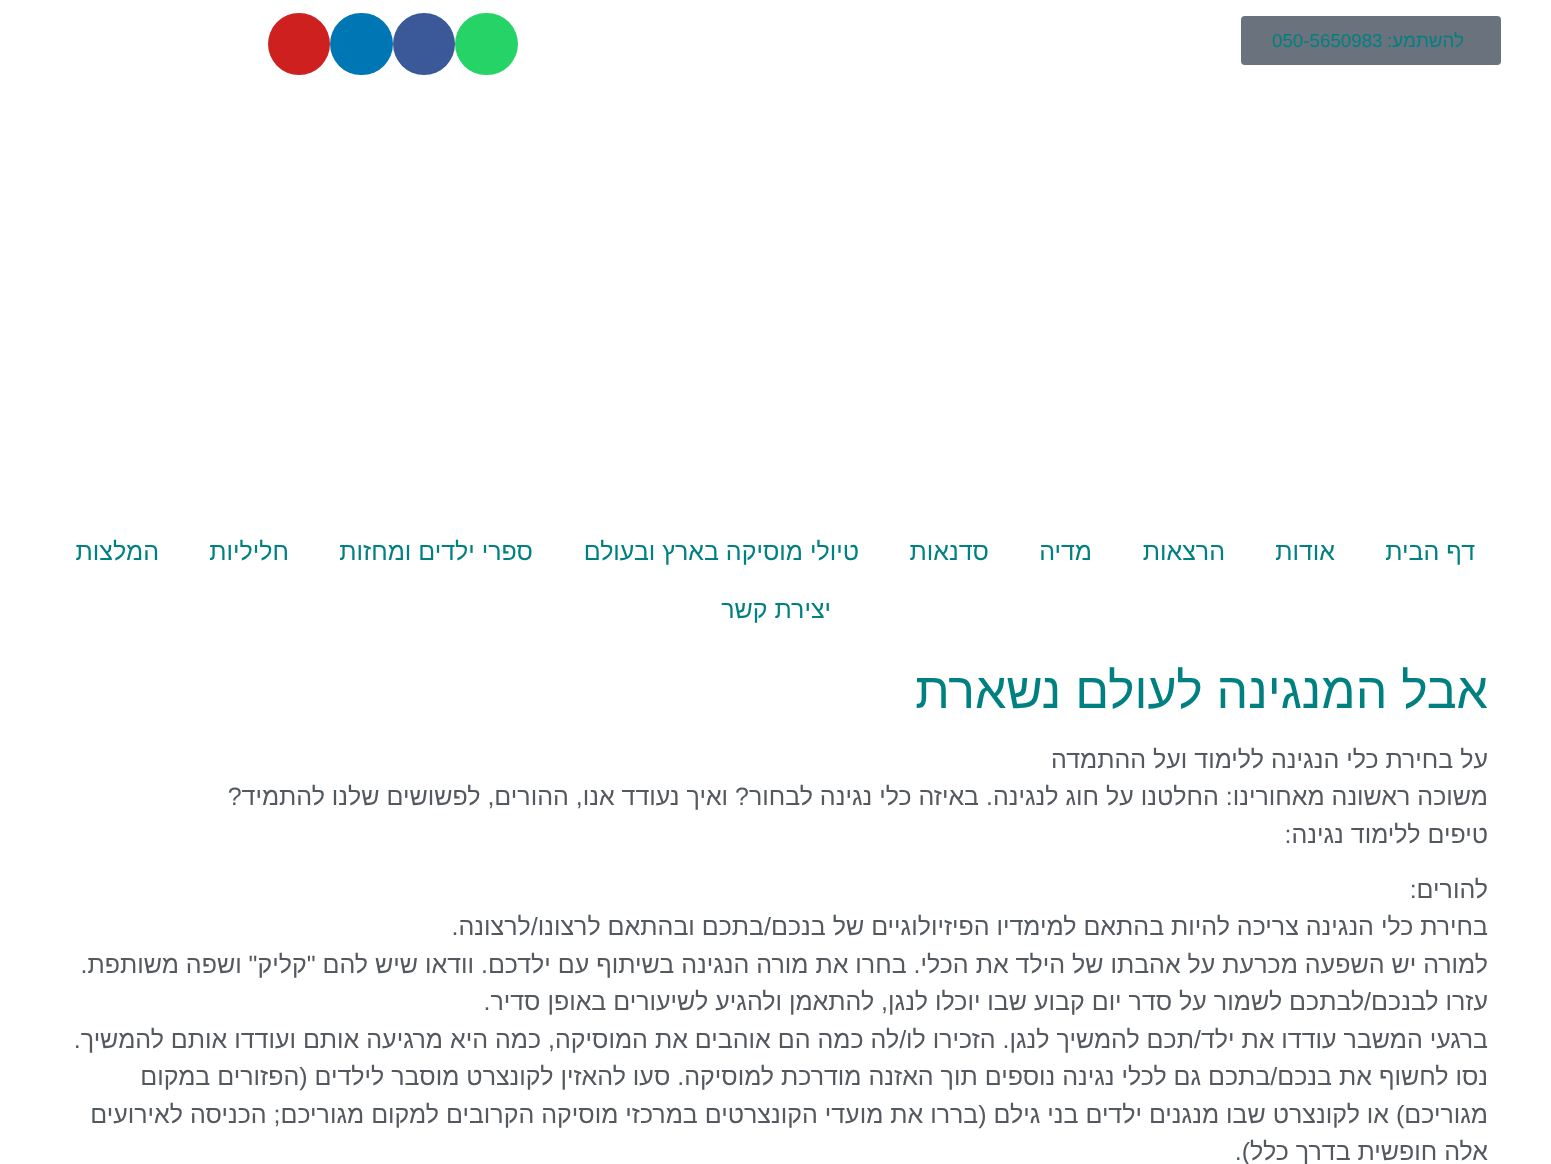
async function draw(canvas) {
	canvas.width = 1551;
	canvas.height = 1164;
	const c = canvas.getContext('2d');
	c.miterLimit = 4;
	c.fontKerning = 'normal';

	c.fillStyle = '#fff';
	c.fillRect(0, 0, 1551, 1164);
	c.fillStyle = '#69727d';
	c.beginPath();
	c.roundRect(1241, 16, 260, 49, 4);
	c.fill();
	c.direction = 'rtl';
	c.font = '18.75px Liberation Sans';
	c.fillStyle = '#008081';
	c.fillText('להשתמע:', 1464, 47);
	c.direction = 'ltr';
	c.fillText('050-5650983', 1272, 47);
	c.fillStyle = '#25d366';
	c.beginPath();
	c.roundRect(455, 13, 63, 62, 31);
	c.fill();
	c.fillStyle = '#3b5998';
	c.beginPath();
	c.arc(424, 44, 31, 0, 2 * Math.PI);
	c.fill();
	c.fillStyle = '#0077b5';
	c.beginPath();
	c.roundRect(330, 13, 63, 62, 31);
	c.fill();
	c.fillStyle = '#cd201f';
	c.beginPath();
	c.arc(299, 44, 31, 0, 2 * Math.PI);
	c.fill();
	c.direction = 'rtl';
	c.font = '25px Liberation Sans';
	c.fillStyle = '#008081';
	for (const [text, x, y] of [
		['דף הבית', 1475, 560],
		['אודות', 1335, 560],
		['הרצאות', 1225, 560],
		['מדיה', 1092, 560],
		['סדנאות', 989, 560],
		['טיולי מוסיקה בארץ ובעולם', 859, 560],
		['ספרי ילדים ומחזות', 533, 560],
		['חליליות', 289, 560],
		['המלצות', 159, 560],
		['יצירת קשר', 831, 618],
	]) {
		c.fillText(text, x, y);
	}
	c.font = '50px Liberation Sans';
	c.fillText('אבל המנגינה לעולם נשארת', 1488, 708);
	c.font = '25px Liberation Sans';
	c.fillStyle = '#54595f';
	for (const [text, x, y] of [
		['על בחירת כלי הנגינה ללימוד ועל ההתמדה', 1488, 768],
		['משוכה ראשונה מאחורינו: החלטנו על חוג לנגינה. באיזה כלי נגינה לבחור? ואיך נעודד אנו, ההורים, לפשושים שלנו להתמיד?', 1488, 805],
		['טיפים ללימוד נגינה:', 1488, 843],
		['להורים:', 1488, 898],
		['בחירת כלי הנגינה צריכה להיות בהתאם למימדיו הפיזיולוגיים של בנכם/בתכם ובהתאם לרצונו/לרצונה.', 1488, 935],
		['למורה יש השפעה מכרעת על אהבתו של הילד את הכלי. בחרו את מורה הנגינה בשיתוף עם ילדכם. וודאו שיש להם "קליק" ושפה משותפת.', 1488, 973],
		['עזרו לבנכם/לבתכם לשמור על סדר יום קבוע שבו יוכלו לנגן, להתאמן ולהגיע לשיעורים באופן סדיר.', 1488, 1010],
		['ברגעי המשבר עודדו את ילד/תכם להמשיך לנגן. הזכירו לו/לה כמה הם אוהבים את המוסיקה, כמה היא מרגיעה אותם ועודדו אותם להמשיך.', 1488, 1048],
		['נסו לחשוף את בנכם/בתכם גם לכלי נגינה נוספים תוך האזנה מודרכת למוסיקה. סעו להאזין לקונצרט מוסבר לילדים (הפזורים במקום', 1488, 1085],
		['מגוריכם) או לקונצרט שבו מנגנים ילדים בני גילם (בררו את מועדי הקונצרטים במרכזי מוסיקה הקרובים למקום מגוריכם; הכניסה לאירועים', 1488, 1123],
		['אלה חופשית בדרך כלל).', 1488, 1160],
	]) {
		c.fillText(text, x, y);
	}
}

draw(document.querySelector('canvas'));
